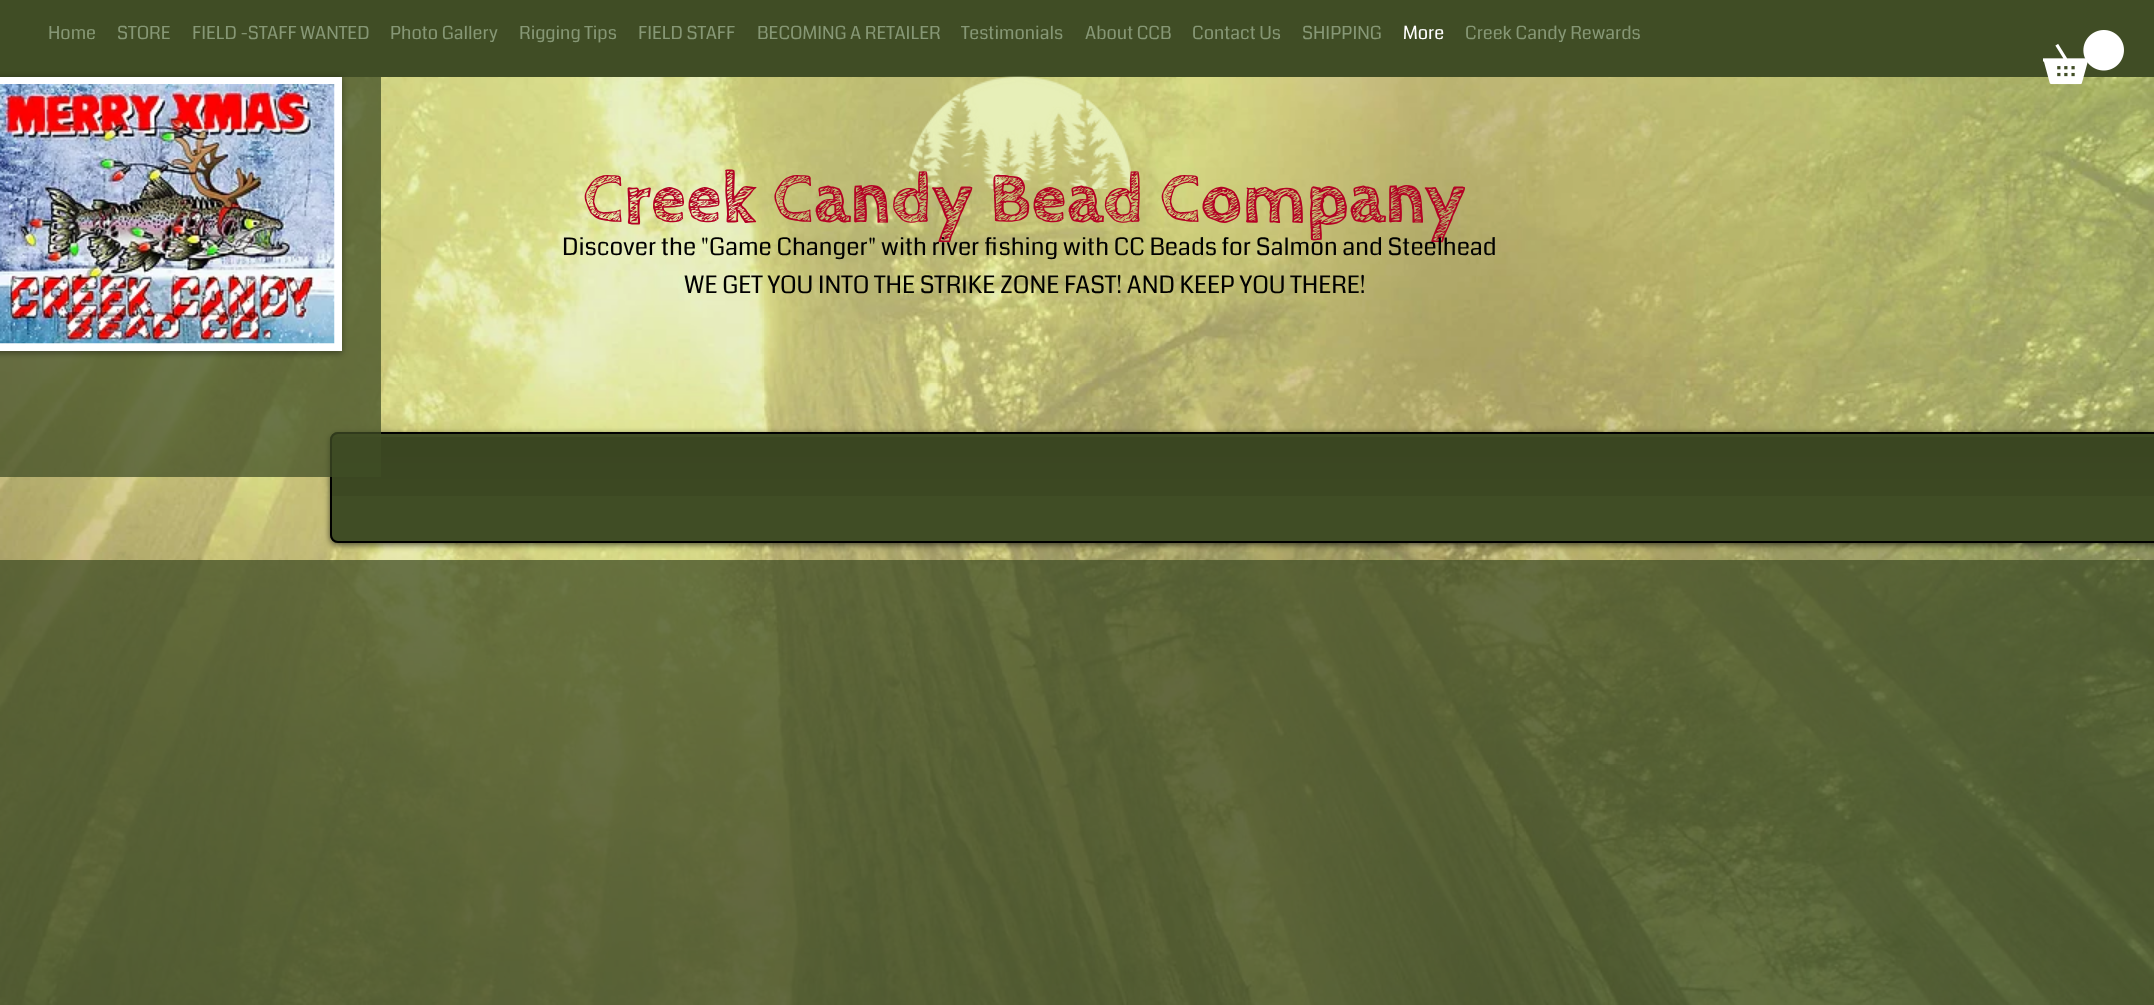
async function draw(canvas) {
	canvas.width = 2154;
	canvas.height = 1005;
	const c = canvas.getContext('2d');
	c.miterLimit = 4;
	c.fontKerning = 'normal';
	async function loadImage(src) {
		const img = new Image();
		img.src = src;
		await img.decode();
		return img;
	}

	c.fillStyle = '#fff';
	c.fillRect(0, 0, 2154, 1005);
	c.fillStyle = '#404d25';
	c.fillRect(0, 0, 2154, 77);
	c.font = '18px Coda';
	c.fillStyle = '#869775';
	for (const [text, x, y] of [
		['Home', 48, 39],
		['STORE', 117, 39],
		['FIELD -STAFF WANTED', 192, 39],
		['Photo Gallery', 390, 39],
		['Rigging Tips', 519, 39],
		['FIELD STAFF', 638, 39],
		['BECOMING A RETAILER', 757, 39],
		['Testimonials', 961, 39],
		['About CCB', 1085, 39],
		['Contact Us', 1192, 39],
		['SHIPPING', 1302, 39],
	]) {
		c.fillText(text, x, y);
	}
	c.fillStyle = '#fff';
	c.fillText('More', 1403, 39);
	c.fillStyle = '#869775';
	c.fillText('Creek Candy Rewards', 1465, 39);
	c.drawImage(await loadImage('img5.png'), 0, 77, 2154, 928);
	c.fillStyle = '#00000099';
	c.filter = 'blur(3px)';
	c.beginPath();
	c.roundRect(330, 434, 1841, 111, 8);
	c.fill();
	c.filter = 'none';
	c.fillStyle = '#404d25';
	c.beginPath();
	c.roundRect(330, 432, 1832, 111, 8);
	c.fill();
	c.drawImage(await loadImage('img3.png'), 330, 437, 1824, 59);
	c.beginPath();
	c.roundRect(331, 433, 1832, 109, 7);
	c.strokeStyle = '#000';
	c.lineWidth = 2;
	c.stroke();
	c.fillStyle = '#404d25bf';
	c.fillRect(0, 77, 381, 400);
	c.fillStyle = '#00000066';
	c.filter = 'blur(3px)';
	c.beginPath();
	c.rect(-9, 78, 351, 275);
	c.fill();
	c.filter = 'none';
	c.fillStyle = '#fff';
	c.fillRect(0, 77, 342, 274);
	c.drawImage(await loadImage('img1.png'), 0, 84, 335, 260);
	c.drawImage(await loadImage('img2.png'), 907, 76, 224, 113);
	c.font = 'bold 72px Cabin Sketch';
	c.fillStyle = '#b30225';
	c.fillText('Creek Candy Bead Company', 583, 221);
	c.font = '24px Coda';
	c.fillStyle = '#000';
	c.fillText('Discover the "Game Changer" with river fishing with CC Beads for Salmon and Steelhead', 562, 255);
	c.fillText('WE GET YOU INTO THE STRIKE ZONE FAST! AND KEEP YOU THERE!', 684, 293);
	c.drawImage(await loadImage('img4.png'), 2043, 30, 81, 55);
	c.fillStyle = '#404d25bf';
	c.fillRect(0, 560, 2154, 445);
}

draw(document.querySelector('canvas'));
